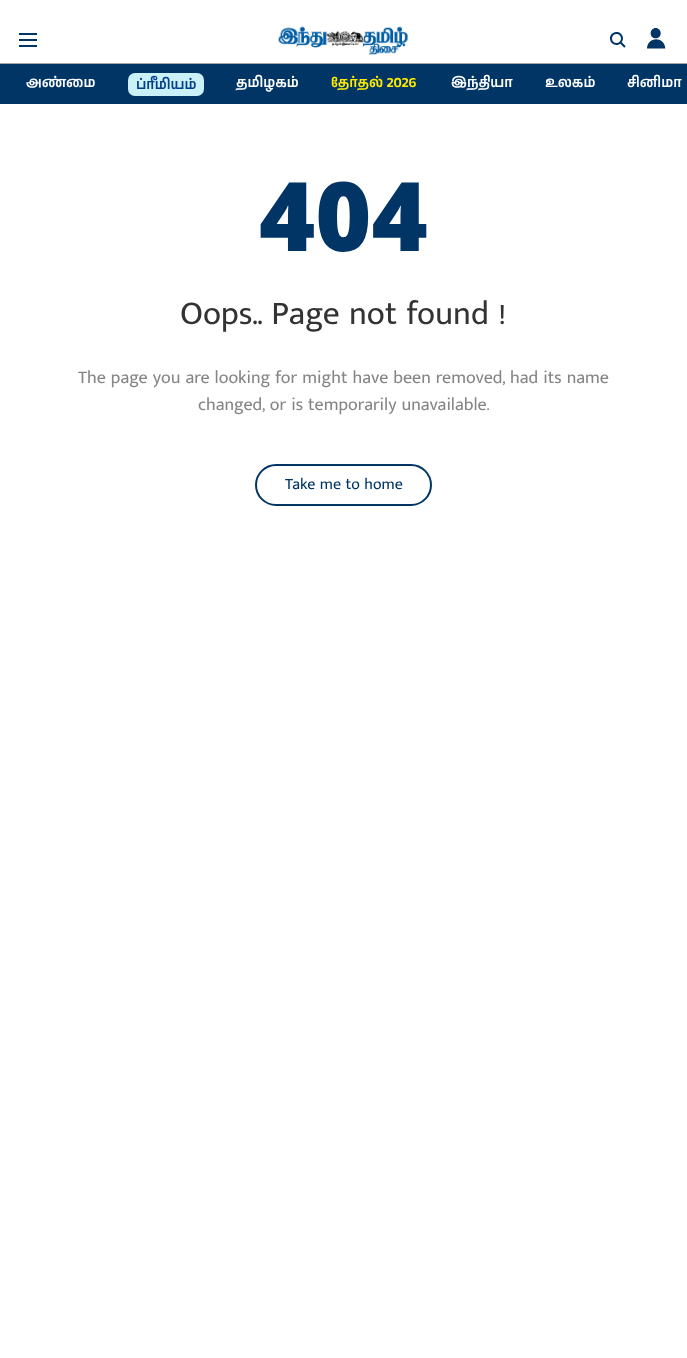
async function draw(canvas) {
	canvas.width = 687;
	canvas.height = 1358;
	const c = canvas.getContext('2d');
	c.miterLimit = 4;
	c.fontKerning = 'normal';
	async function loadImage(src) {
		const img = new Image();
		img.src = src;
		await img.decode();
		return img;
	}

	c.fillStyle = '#fff';
	c.fillRect(0, 0, 687, 1358);
	c.fillStyle = '#a4a4a4';
	c.fillRect(0, 63, 687, 1);
	c.drawImage(await loadImage('img1.png'), 19, 33, 18, 14);
	c.drawImage(await loadImage('img2.png'), 278, 26, 131, 29);
	c.drawImage(await loadImage('img3.png'), 609, 32, 17, 16);
	c.drawImage(await loadImage('img4.png'), 647, 28, 19, 21);
	c.fillStyle = '#003566';
	c.fillRect(0, 64, 687, 40);
	c.font = '600 14px Anek Tamil';
	c.fillStyle = '#fff';
	c.fillText('அண்மை', 26, 87);
	c.fillStyle = '#caf0f8';
	c.beginPath();
	c.roundRect(128, 73, 76, 23, 7);
	c.fill();
	c.fillStyle = '#023e8a';
	c.fillText('ப்ரீமியம்', 136, 89);
	c.fillStyle = '#fff';
	c.fillText('தமிழகம்', 236, 87);
	c.fillStyle = '#ffea00';
	c.fillText('தேர்தல் 2026', 331, 87);
	c.fillStyle = '#fff';
	for (const [text, x, y] of [
		['இந்தியா', 451, 87],
		['உலகம்', 545, 87],
		['சினிமா', 627, 87],
	]) {
		c.fillText(text, x, y);
	}
	c.font = '800 96px Open Sans';
	c.fillStyle = '#003566';
	c.fillText('404', 259, 251);
	c.font = '33.5px Mukta Malar';
	c.fillStyle = '#333';
	c.fillText('Oops.. Page not found !', 180, 324);
	c.font = '18px Mukta Malar';
	c.fillStyle = '#858585';
	c.fillText('The page you are looking for might have been removed, had its name', 78, 383);
	c.fillText('changed, or is temporarily unavailable.', 198, 410);
	c.beginPath();
	c.roundRect(256, 465, 175, 40, 20);
	c.strokeStyle = '#003566';
	c.lineWidth = 2;
	c.stroke();
	c.font = '16px Mukta Malar';
	c.fillStyle = '#003566';
	c.fillText('Take me to home', 285, 489);
}

draw(document.querySelector('canvas'));
